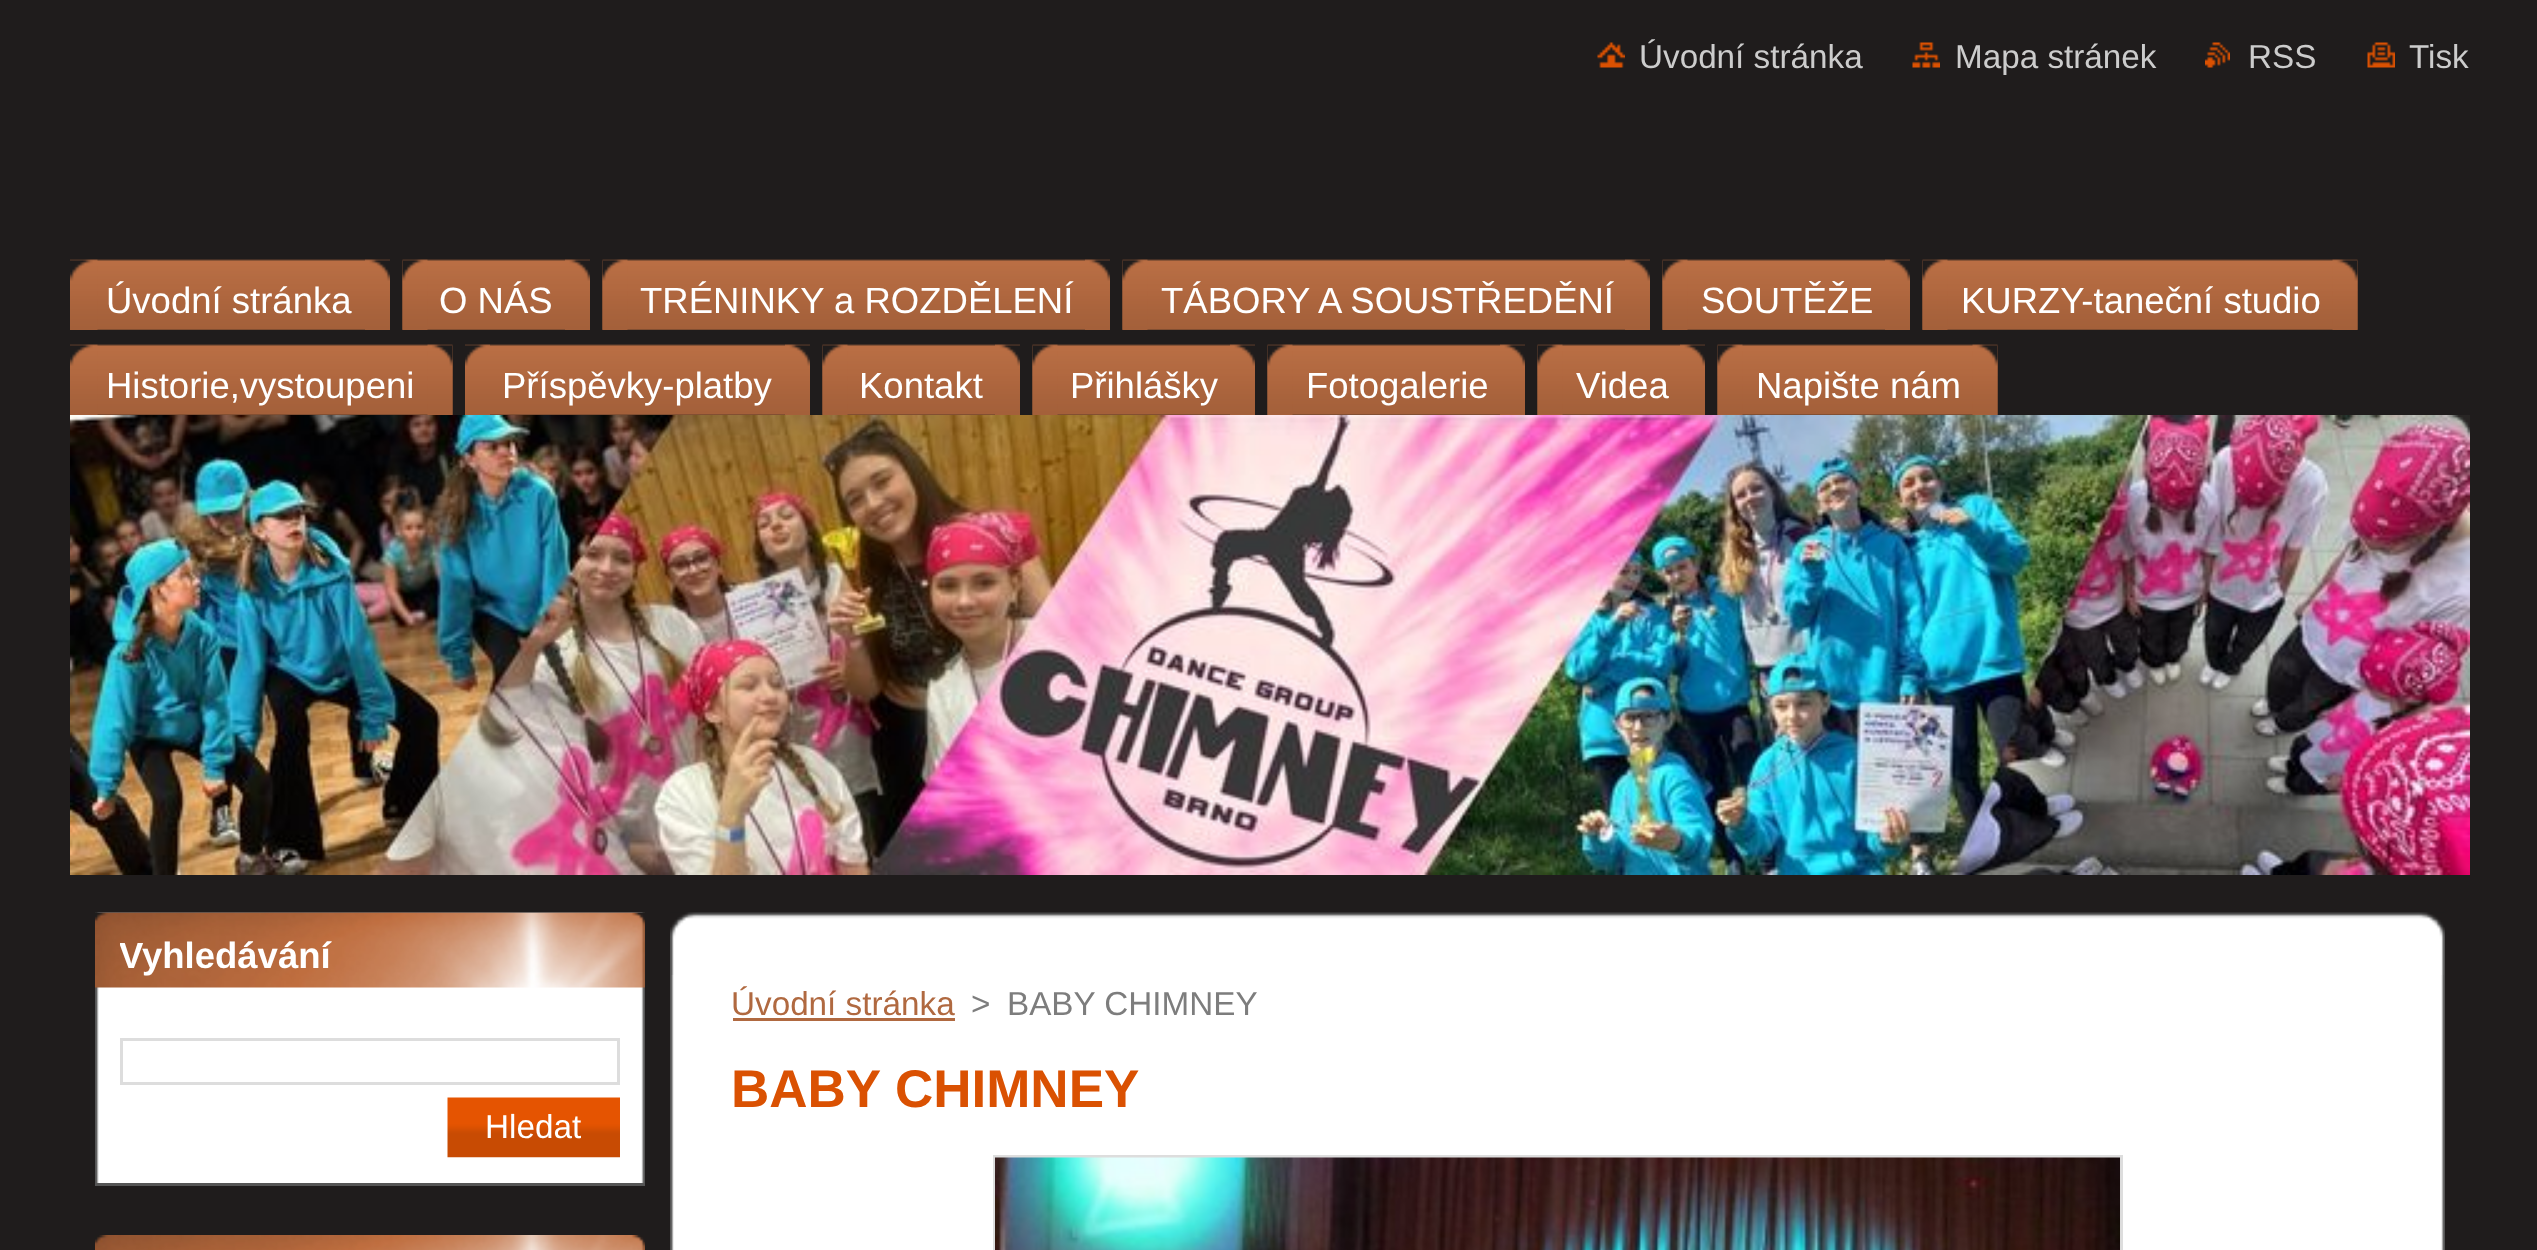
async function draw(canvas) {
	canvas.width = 2537;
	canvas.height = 1250;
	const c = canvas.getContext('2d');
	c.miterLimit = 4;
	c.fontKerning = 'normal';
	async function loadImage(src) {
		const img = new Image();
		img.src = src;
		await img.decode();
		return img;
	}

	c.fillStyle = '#1f1c1c';
	c.fillRect(0, 0, 2537, 1250);
	c.drawImage(await loadImage('img1.png'), 1597, 42, 28, 26);
	c.font = '33.25px Liberation Sans';
	c.fillStyle = '#ccc';
	c.fillText('Úvodní stránka', 1639, 68);
	c.drawImage(await loadImage('img2.png'), 1912, 42, 28, 26);
	c.fillText('Mapa stránek', 1955, 68);
	c.drawImage(await loadImage('img3.png'), 2205, 42, 25, 26);
	c.fillText('RSS', 2248, 68);
	c.drawImage(await loadImage('img4.png'), 2367, 42, 28, 26);
	c.fillText('Tisk', 2409, 68);
	c.drawImage(await loadImage('img5.png'), 70, 259, 320, 71);
	c.drawImage(await loadImage('img6.png'), 70, 259, 28, 71);
	c.drawImage(await loadImage('img7.png'), 365, 259, 25, 71);
	c.font = '36.5px Liberation Sans';
	c.fillStyle = '#fff';
	c.fillText('Úvodní stránka', 106, 313);
	c.drawImage(await loadImage('img8.png'), 402, 259, 188, 71);
	c.drawImage(await loadImage('img9.png'), 402, 259, 26, 71);
	c.drawImage(await loadImage('img10.png'), 565, 259, 25, 71);
	c.fillText('O NÁS', 439, 313);
	c.drawImage(await loadImage('img11.png'), 602, 259, 508, 71);
	c.drawImage(await loadImage('img12.png'), 602, 259, 26, 71);
	c.drawImage(await loadImage('img7.png'), 1085, 259, 25, 71);
	c.fillText('TRÉNINKY a ROZDĚLENÍ', 640, 313);
	c.drawImage(await loadImage('img13.png'), 1122, 259, 528, 71);
	c.drawImage(await loadImage('img9.png'), 1122, 259, 26, 71);
	c.drawImage(await loadImage('img7.png'), 1625, 259, 25, 71);
	c.fillText('TÁBORY A SOUSTŘEDĚNÍ', 1161, 313);
	c.drawImage(await loadImage('img14.png'), 1662, 259, 248, 71);
	c.drawImage(await loadImage('img9.png'), 1662, 259, 26, 71);
	c.drawImage(await loadImage('img7.png'), 1885, 259, 25, 71);
	c.fillText('SOUTĚŽE', 1701, 313);
	c.drawImage(await loadImage('img15.png'), 1922, 259, 436, 71);
	c.drawImage(await loadImage('img12.png'), 1922, 259, 26, 71);
	c.drawImage(await loadImage('img16.png'), 2332, 259, 26, 71);
	c.fillText('KURZY-taneční studio', 1961, 313);
	c.drawImage(await loadImage('img17.png'), 70, 344, 383, 71);
	c.drawImage(await loadImage('img6.png'), 70, 344, 28, 71);
	c.drawImage(await loadImage('img18.png'), 427, 344, 26, 71);
	c.fillText('Historie,vystoupeni', 106, 398);
	c.drawImage(await loadImage('img19.png'), 465, 344, 345, 71);
	c.drawImage(await loadImage('img20.png'), 465, 344, 25, 71);
	c.drawImage(await loadImage('img7.png'), 785, 344, 25, 71);
	c.fillText('Příspěvky-platby', 502, 398);
	c.drawImage(await loadImage('img21.png'), 822, 344, 198, 71);
	c.drawImage(await loadImage('img9.png'), 822, 344, 26, 71);
	c.drawImage(await loadImage('img22.png'), 995, 344, 25, 71);
	c.fillText('Kontakt', 859, 398);
	c.drawImage(await loadImage('img23.png'), 1032, 344, 223, 71);
	c.drawImage(await loadImage('img12.png'), 1032, 344, 26, 71);
	c.drawImage(await loadImage('img7.png'), 1230, 344, 25, 71);
	c.fillText('Přihlášky', 1070, 398);
	c.drawImage(await loadImage('img24.png'), 1267, 344, 258, 71);
	c.drawImage(await loadImage('img12.png'), 1267, 344, 26, 71);
	c.drawImage(await loadImage('img7.png'), 1500, 344, 25, 71);
	c.fillText('Fotogalerie', 1306, 398);
	c.drawImage(await loadImage('img25.png'), 1537, 344, 168, 71);
	c.drawImage(await loadImage('img12.png'), 1537, 344, 26, 71);
	c.drawImage(await loadImage('img7.png'), 1680, 344, 25, 71);
	c.fillText('Videa', 1576, 398);
	c.drawImage(await loadImage('img26.png'), 1717, 344, 281, 71);
	c.drawImage(await loadImage('img12.png'), 1717, 344, 26, 71);
	c.drawImage(await loadImage('img18.png'), 1972, 344, 26, 71);
	c.fillText('Napište nám', 1756, 398);
	c.drawImage(await loadImage('img27.png'), 70, 415, 2400, 460);
	c.drawImage(await loadImage('img28.png'), 2449, 415, 21, 22);
	c.drawImage(await loadImage('img29.png'), 95, 912, 550, 271);
	c.fillStyle = '#555';
	c.fillRect(95, 1183, 550, 3);
	c.drawImage(await loadImage('img30.png'), 95, 912, 550, 76);
	c.save();
	c.beginPath();
	c.rect(120, 918, 500, 70);
	c.clip();
	c.font = 'bold 36.5px Liberation Sans';
	c.fillStyle = '#fff';
	c.fillText('Vyhledávání', 119, 968);
	c.restore();
	c.strokeStyle = '#ddd';
	c.lineWidth = 3;
	c.strokeRect(121.5, 1039.5, 497, 44);
	c.drawImage(await loadImage('img31.png'), 447, 1097, 173, 61);
	c.font = '33.25px Liberation Sans';
	c.fillStyle = '#fff';
	c.fillText('Hledat', 485, 1138);
	c.drawImage(await loadImage('img32.png'), 95, 1235, 550, 15);
	c.drawImage(await loadImage('img33.png'), 670, 912, 1775, 63);
	c.drawImage(await loadImage('img34.png'), 670, 975, 1775, 275);
	c.fillStyle = '#b06940';
	c.fillText('Úvodní stránka', 731, 1015);
	c.fillRect(733, 1018, 222, 3);
	c.fillStyle = '#7d7d7d';
	c.fillText('>', 971, 1015);
	c.fillText('BABY CHIMNEY', 1007, 1015);
	c.font = 'bold 53px Liberation Sans';
	c.fillStyle = '#da5102';
	c.fillText('BABY CHIMNEY', 731, 1107);
	c.strokeRect(994.5, 1156.5, 1127, 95);
	c.drawImage(await loadImage('img35.png'), 995, 1157, 1125, 93);
}

draw(document.querySelector('canvas'));
